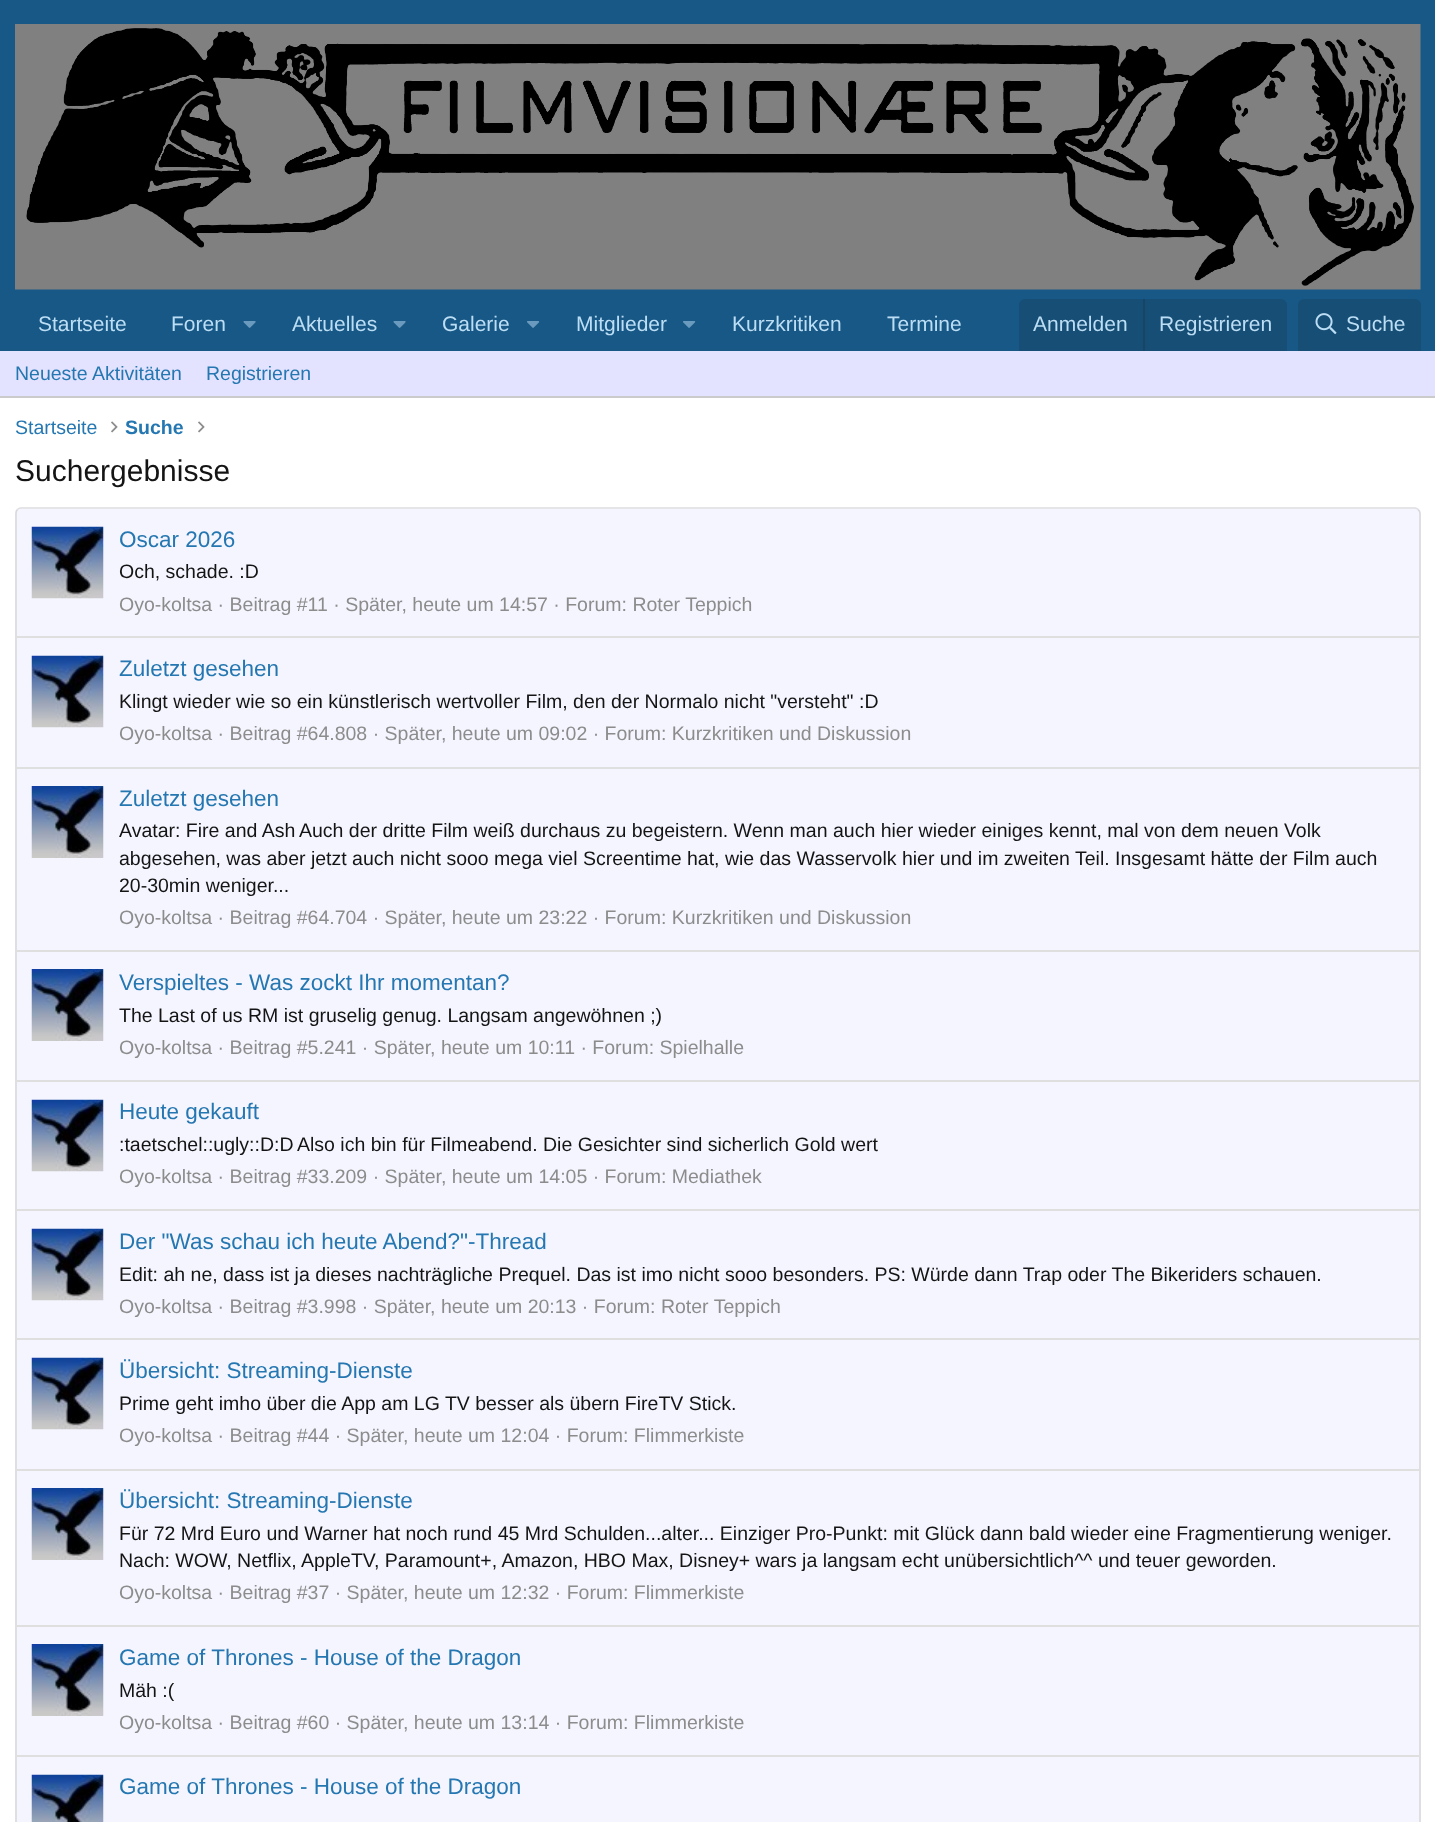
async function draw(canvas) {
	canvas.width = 1435;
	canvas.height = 1822;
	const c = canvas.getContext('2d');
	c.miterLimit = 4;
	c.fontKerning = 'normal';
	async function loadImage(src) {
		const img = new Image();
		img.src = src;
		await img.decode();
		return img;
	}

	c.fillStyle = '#fff';
	c.fillRect(0, 0, 1435, 1822);
	c.fillStyle = '#185886';
	c.fillRect(0, 0, 1435, 351);
	c.drawImage(await loadImage('img1.png'), 15, 24, 1406, 266);
	c.font = '21px Liberation Sans';
	c.fillStyle = '#bcdef5';
	c.fillText('Startseite', 38, 331);
	c.fillText('Foren', 171, 331);
	c.drawImage(await loadImage('img2.png'), 243, 321, 13, 7);
	c.fillText('Aktuelles', 292, 331);
	c.drawImage(await loadImage('img2.png'), 393, 321, 13, 7);
	c.fillText('Galerie', 442, 331);
	c.drawImage(await loadImage('img3.png'), 527, 321, 13, 7);
	c.fillText('Mitglieder', 576, 331);
	c.drawImage(await loadImage('img3.png'), 683, 321, 13, 7);
	c.fillText('Kurzkritiken', 732, 331);
	c.fillText('Termine', 887, 331);
	c.fillStyle = '#174e75';
	c.beginPath();
	c.roundRect(1019, 299, 268, 52, [6, 6, 0, 0]);
	c.fill();
	c.fillStyle = '#bcdef5';
	c.fillText('Anmelden', 1033, 331);
	c.fillStyle = '#174566';
	c.fillRect(1143, 299, 2, 52);
	c.fillStyle = '#bcdef5';
	c.fillText('Registrieren', 1159, 331);
	c.fillStyle = '#174e75';
	c.beginPath();
	c.roundRect(1298, 299, 123, 52, [6, 6, 0, 0]);
	c.fill();
	c.drawImage(await loadImage('img4.png'), 1315, 313, 22, 22);
	c.fillStyle = '#bcdef5';
	c.fillText('Suche', 1346, 331);
	c.fillStyle = '#e3e3ff';
	c.fillRect(0, 351, 1435, 45);
	c.fillStyle = '#cbcbcb';
	c.fillRect(0, 396, 1435, 2);
	c.font = '19.5px Liberation Sans';
	c.fillStyle = '#2577b1';
	for (const [text, x, y] of [
		['Neueste Aktivitäten', 15, 380],
		['Registrieren', 206, 380],
		['Startseite', 15, 434],
	]) {
		c.fillText(text, x, y);
	}
	c.drawImage(await loadImage('img5.png'), 111, 421, 7, 12);
	c.font = 'bold 19.5px Liberation Sans';
	c.fillText('Suche', 125, 434);
	c.drawImage(await loadImage('img5.png'), 198, 421, 7, 12);
	c.font = '30px Liberation Sans';
	c.fillStyle = '#141414';
	c.fillText('Suchergebnisse', 15, 481);
	c.fillStyle = '#f5f5ff';
	c.beginPath();
	c.roundRect(15, 507, 1406, 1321, 6);
	c.fill();
	c.beginPath();
	c.moveTo(17.5, 509.5);
	c.bezierCurveTo(18.5, 508.5, 19.5, 508, 21, 508);
	c.lineTo(1414.5, 508);
	c.bezierCurveTo(1416, 508, 1417, 508.5, 1418, 509.5);
	c.strokeStyle = '#dfdfdf';
	c.lineWidth = 1.5;
	c.stroke();
	c.beginPath();
	c.moveTo(1418, 509.5);
	c.bezierCurveTo(1419, 510.5, 1420, 511.5, 1420, 513);
	c.lineTo(1420, 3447);
	c.bezierCurveTo(1420, 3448.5, 1419, 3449.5, 1418, 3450.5);
	c.strokeStyle = '#d8d8d8';
	c.stroke();
	c.beginPath();
	c.moveTo(17.5, 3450.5);
	c.bezierCurveTo(16.5, 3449.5, 16, 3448.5, 16, 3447);
	c.lineTo(16, 513);
	c.bezierCurveTo(16, 511.5, 16.5, 510.5, 17.5, 509.5);
	c.stroke();
	c.drawImage(await loadImage('img6.png'), 31, 526, 73, 73);
	c.font = '22.5px Liberation Sans';
	c.fillStyle = '#2577b1';
	c.fillText('Oscar 2026', 119, 547);
	c.font = '19.5px Liberation Sans';
	c.fillStyle = '#141414';
	c.fillText('Och, schade. :D', 119, 578);
	c.fillStyle = '#8c8c8c';
	c.fillText('Oyo-koltsa · Beitrag #11 · Später, heute um 14:57 · Forum: Roter Teppich', 119, 611);
	c.fillStyle = '#dfdfdf';
	c.fillRect(17, 636, 1402, 2);
	c.drawImage(await loadImage('img6.png'), 31, 655, 73, 73);
	c.font = '22.5px Liberation Sans';
	c.fillStyle = '#2577b1';
	c.fillText('Zuletzt gesehen', 119, 676);
	c.font = '19.5px Liberation Sans';
	c.fillStyle = '#141414';
	c.fillText('Klingt wieder wie so ein künstlerisch wertvoller Film, den der Normalo nicht "versteht" :D', 119, 708);
	c.fillStyle = '#8c8c8c';
	c.fillText('Oyo-koltsa · Beitrag #64.808 · Später, heute um 09:02 · Forum: Kurzkritiken und Diskussion', 119, 740);
	c.fillStyle = '#dfdfdf';
	c.fillRect(17, 767, 1402, 2);
	c.drawImage(await loadImage('img7.png'), 31, 786, 73, 72);
	c.font = '22.5px Liberation Sans';
	c.fillStyle = '#2577b1';
	c.fillText('Zuletzt gesehen', 119, 806);
	c.font = '19.5px Liberation Sans';
	c.fillStyle = '#141414';
	for (const [text, x, y] of [
		['Avatar: Fire and Ash', 119, 837],
		['Auch der dritte Film weiß durchaus zu begeistern. Wenn man auch hier wieder einiges kennt, mal von dem neuen Volk', 299, 837],
		['abgesehen, was aber jetzt auch nicht sooo mega viel Screentime hat, wie das Wasservolk hier und im zweiten Teil. Insgesamt hätte der Film auch', 119, 865],
		['20-30min weniger...', 119, 892],
	]) {
		c.fillText(text, x, y);
	}
	c.fillStyle = '#8c8c8c';
	c.fillText('Oyo-koltsa · Beitrag #64.704 · Später, heute um 23:22 · Forum: Kurzkritiken und Diskussion', 119, 924);
	c.fillStyle = '#dfdfdf';
	c.fillRect(17, 950, 1402, 2);
	c.drawImage(await loadImage('img7.png'), 31, 969, 73, 72);
	c.font = '22.5px Liberation Sans';
	c.fillStyle = '#2577b1';
	c.fillText('Verspieltes - Was zockt Ihr momentan?', 119, 990);
	c.font = '19.5px Liberation Sans';
	c.fillStyle = '#141414';
	c.fillText('The Last of us RM ist gruselig genug. Langsam angewöhnen ;)', 119, 1022);
	c.fillStyle = '#8c8c8c';
	c.fillText('Oyo-koltsa · Beitrag #5.241 · Später, heute um 10:11 · Forum: Spielhalle', 119, 1054);
	c.fillStyle = '#dfdfdf';
	c.fillRect(17, 1080, 1402, 2);
	c.drawImage(await loadImage('img6.png'), 31, 1099, 73, 73);
	c.font = '22.5px Liberation Sans';
	c.fillStyle = '#2577b1';
	c.fillText('Heute gekauft', 119, 1119);
	c.font = '19.5px Liberation Sans';
	c.fillStyle = '#141414';
	c.fillText(':taetschel::ugly::D:D', 119, 1151);
	c.fillText('Also ich bin für Filmeabend. Die Gesichter sind sicherlich Gold wert', 297, 1151);
	c.fillStyle = '#8c8c8c';
	c.fillText('Oyo-koltsa · Beitrag #33.209 · Später, heute um 14:05 · Forum: Mediathek', 119, 1183);
	c.fillStyle = '#dfdfdf';
	c.fillRect(17, 1209, 1402, 2);
	c.drawImage(await loadImage('img6.png'), 31, 1228, 73, 73);
	c.font = '22.5px Liberation Sans';
	c.fillStyle = '#2577b1';
	c.fillText('Der "Was schau ich heute Abend?"-Thread', 119, 1249);
	c.font = '19.5px Liberation Sans';
	c.fillStyle = '#141414';
	c.fillText('Edit: ah ne, dass ist ja dieses nachträgliche Prequel. Das ist imo nicht sooo besonders. PS: Würde dann Trap oder The Bikeriders schauen.', 119, 1281);
	c.fillStyle = '#8c8c8c';
	c.fillText('Oyo-koltsa · Beitrag #3.998 · Später, heute um 20:13 · Forum: Roter Teppich', 119, 1313);
	c.fillStyle = '#dfdfdf';
	c.fillRect(17, 1338, 1402, 2);
	c.drawImage(await loadImage('img6.png'), 31, 1357, 73, 73);
	c.font = '22.5px Liberation Sans';
	c.fillStyle = '#2577b1';
	c.fillText('Übersicht: Streaming-Dienste', 119, 1378);
	c.font = '19.5px Liberation Sans';
	c.fillStyle = '#141414';
	c.fillText('Prime geht imho über die App am LG TV besser als übern FireTV Stick.', 119, 1410);
	c.fillStyle = '#8c8c8c';
	c.fillText('Oyo-koltsa · Beitrag #44 · Später, heute um 12:04 · Forum: Flimmerkiste', 119, 1442);
	c.fillStyle = '#dfdfdf';
	c.fillRect(17, 1469, 1402, 2);
	c.drawImage(await loadImage('img7.png'), 31, 1488, 73, 72);
	c.font = '22.5px Liberation Sans';
	c.fillStyle = '#2577b1';
	c.fillText('Übersicht: Streaming-Dienste', 119, 1508);
	c.font = '19.5px Liberation Sans';
	c.fillStyle = '#141414';
	c.fillText('Für 72 Mrd Euro und Warner hat noch rund 45 Mrd Schulden...alter... Einziger Pro-Punkt: mit Glück dann bald wieder eine Fragmentierung weniger.', 119, 1540);
	c.fillText('Nach: WOW, Netflix, AppleTV, Paramount+, Amazon, HBO Max, Disney+ wars ja langsam echt unübersichtlich^^ und teuer geworden.', 119, 1567);
	c.fillStyle = '#8c8c8c';
	c.fillText('Oyo-koltsa · Beitrag #37 · Später, heute um 12:32 · Forum: Flimmerkiste', 119, 1599);
	c.fillStyle = '#dfdfdf';
	c.fillRect(17, 1625, 1402, 2);
	c.drawImage(await loadImage('img7.png'), 31, 1644, 73, 72);
	c.font = '22.5px Liberation Sans';
	c.fillStyle = '#2577b1';
	c.fillText('Game of Thrones - House of the Dragon', 119, 1665);
	c.font = '19.5px Liberation Sans';
	c.fillStyle = '#141414';
	c.fillText('Mäh :(', 119, 1697);
	c.fillStyle = '#8c8c8c';
	c.fillText('Oyo-koltsa · Beitrag #60 · Später, heute um 13:14 · Forum: Flimmerkiste', 119, 1729);
	c.fillStyle = '#dfdfdf';
	c.fillRect(17, 1755, 1402, 2);
	c.drawImage(await loadImage('img8.png'), 31, 1774, 73, 48);
	c.font = '22.5px Liberation Sans';
	c.fillStyle = '#2577b1';
	c.fillText('Game of Thrones - House of the Dragon', 119, 1794);
}

draw(document.querySelector('canvas'));
